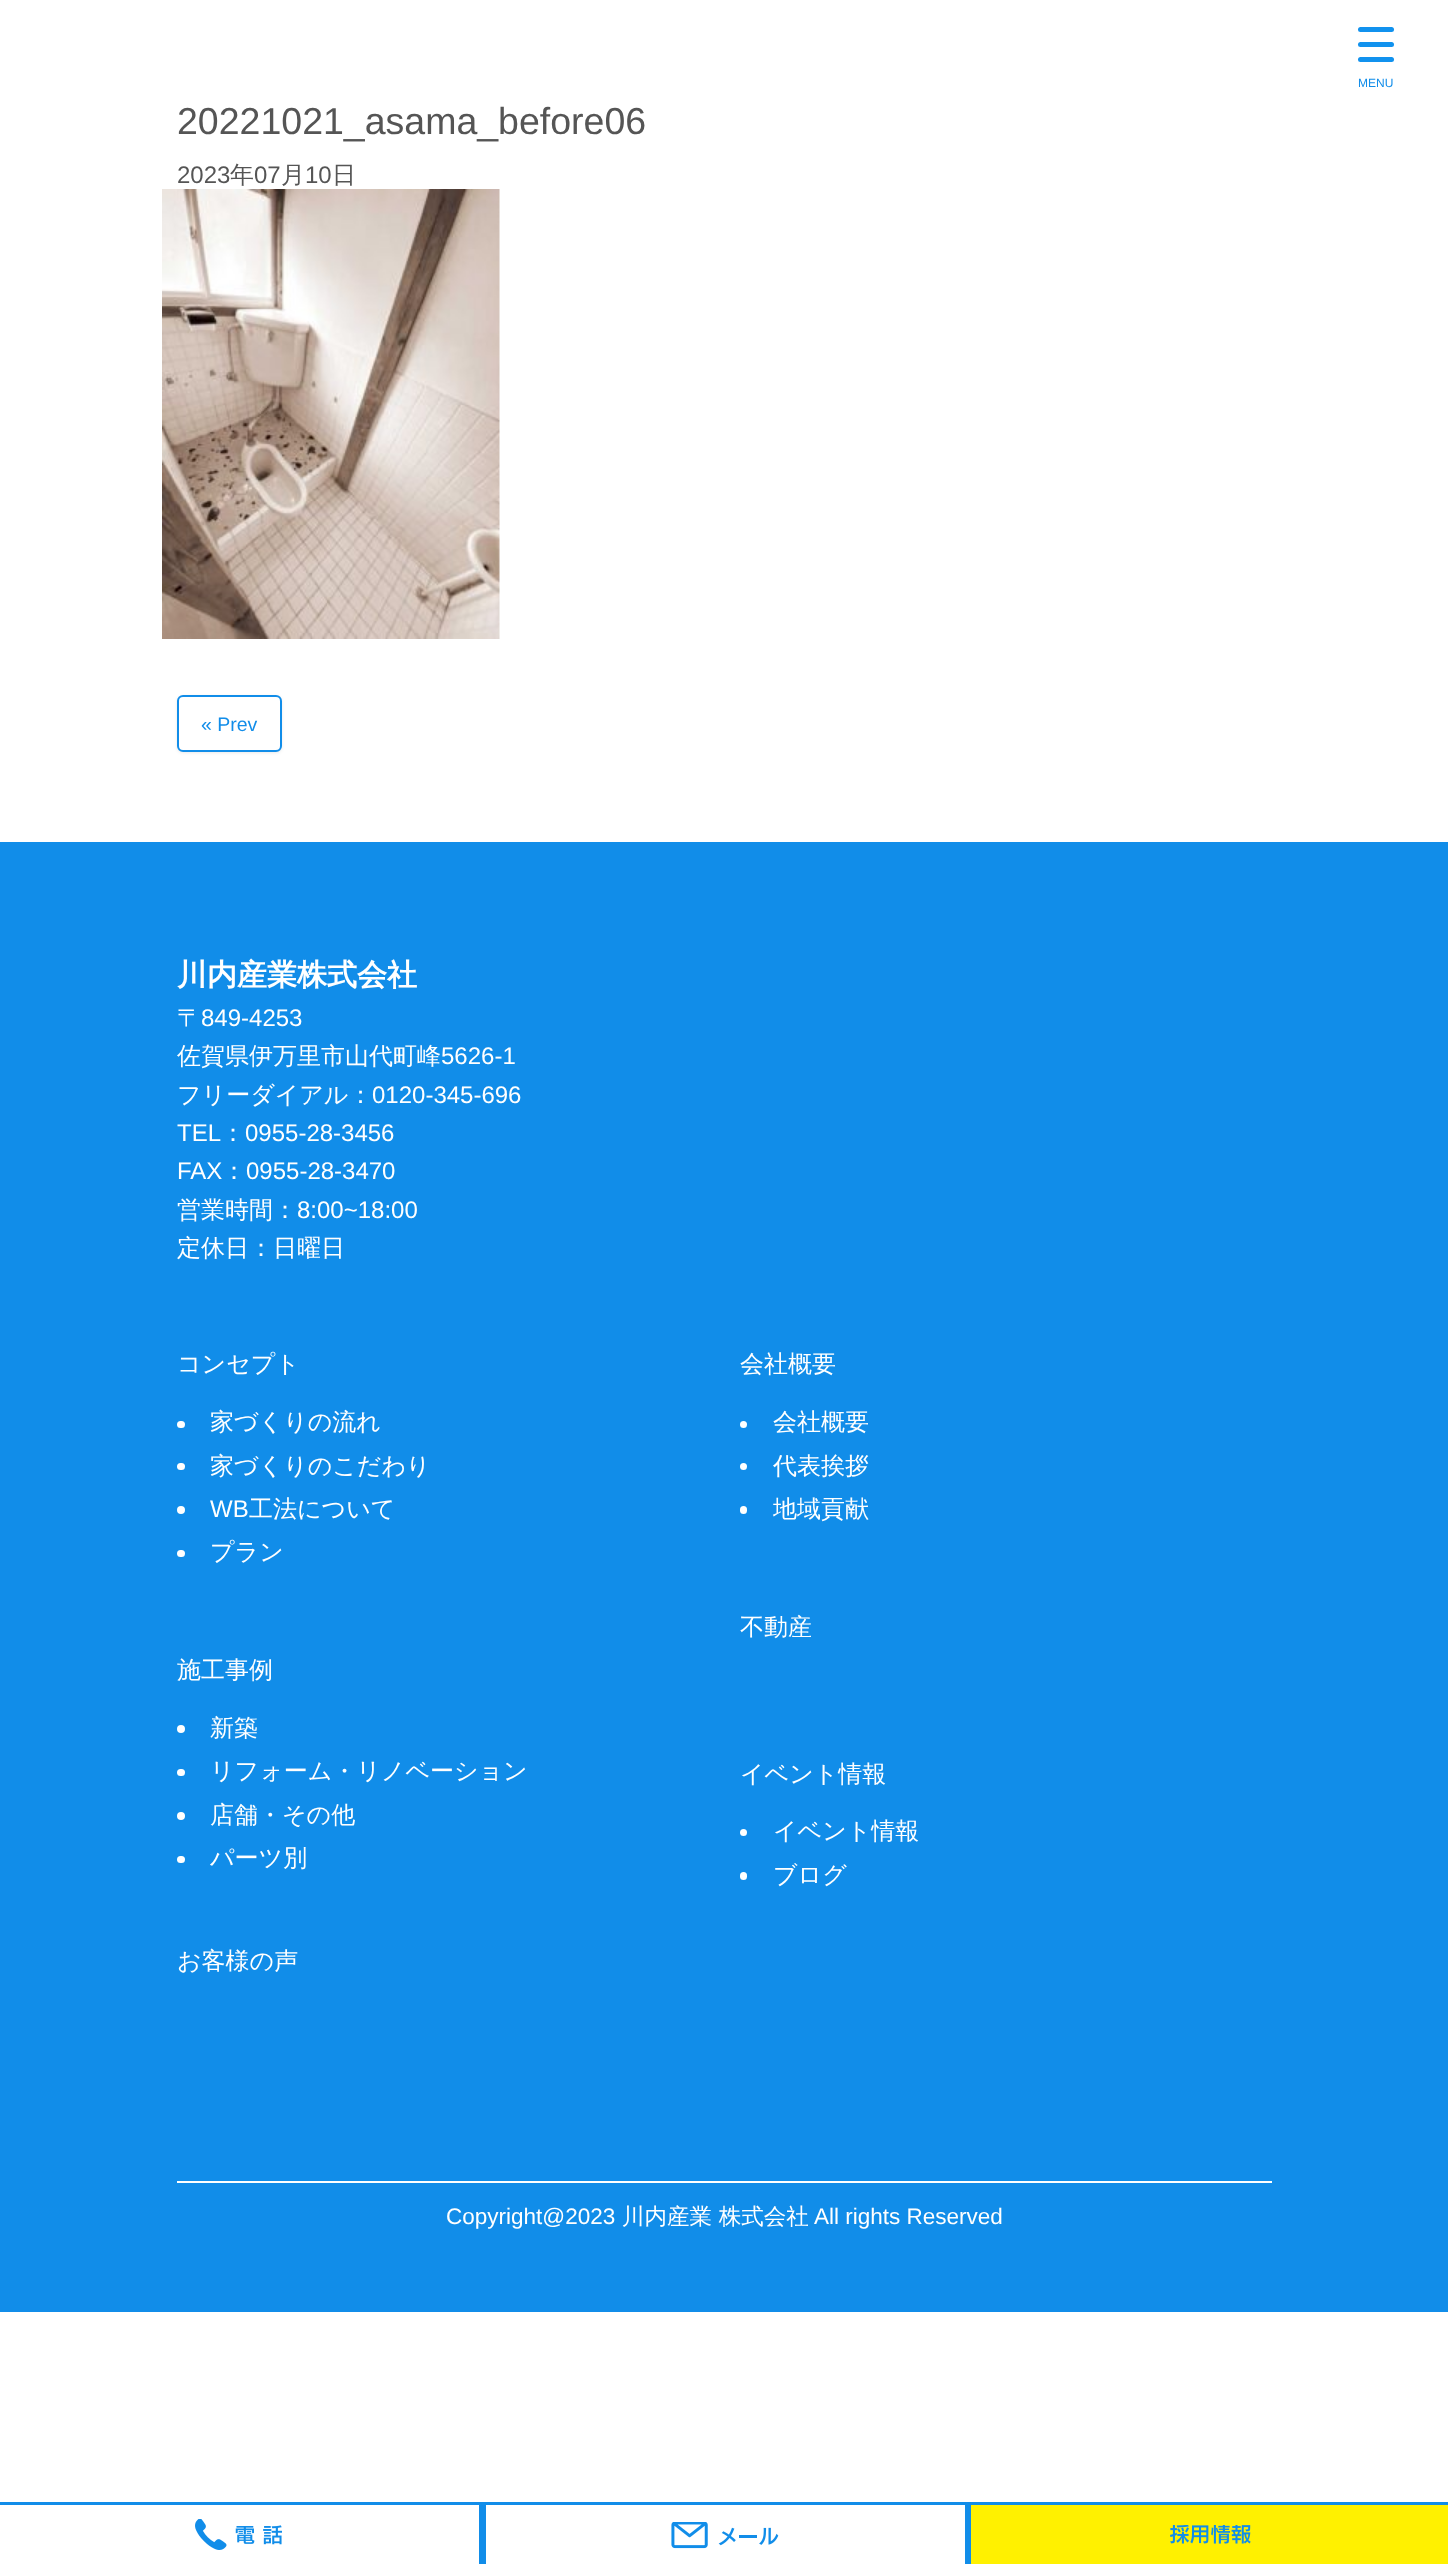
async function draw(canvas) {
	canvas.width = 1448;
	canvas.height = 2564;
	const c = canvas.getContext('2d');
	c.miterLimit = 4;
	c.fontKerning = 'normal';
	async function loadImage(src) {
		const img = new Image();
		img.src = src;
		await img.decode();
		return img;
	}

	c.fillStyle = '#fff';
	c.fillRect(0, 0, 1448, 2564);
	c.fillStyle = '#118de9';
	c.fillRect(0, 842, 1448, 1470);
	c.fillStyle = '#1192ee';
	c.beginPath();
	c.roundRect(1358, 42, 36, 5, 2.5);
	c.fill();
	c.beginPath();
	c.roundRect(1358, 27, 36, 5, 2.5);
	c.fill();
	c.beginPath();
	c.roundRect(1358, 57, 36, 5, 2.5);
	c.fill();
	c.font = '12px Liberation Sans';
	c.fillStyle = '#118de9';
	c.fillText('MENU', 1358, 87);
	c.font = 'bold 30px WenQuanYi Zen Hei';
	c.fillStyle = '#fff';
	c.fillText('川内産業株式会社', 177, 985);
	c.font = '500 24px WenQuanYi Zen Hei';
	c.fillText('〒', 177, 1026);
	c.font = '24px Liberation Sans';
	c.fillText('849-4253', 201, 1026);
	c.font = '500 24px WenQuanYi Zen Hei';
	c.fillText('佐賀県伊万里市山代町峰', 177, 1064);
	c.font = '24px Liberation Sans';
	c.fillText('5626-1', 441, 1064);
	c.font = '500 24px WenQuanYi Zen Hei';
	c.fillText('フリーダイアル：', 177, 1103);
	c.font = '24px Liberation Sans';
	c.fillText('0120-345-696', 372, 1103);
	c.fillText('TEL', 177, 1141);
	c.font = '500 24px WenQuanYi Zen Hei';
	c.fillText('：', 221, 1141);
	c.font = '24px Liberation Sans';
	c.fillText('0955-28-3456', 245, 1141);
	c.fillText('FAX', 177, 1179);
	c.font = '500 24px WenQuanYi Zen Hei';
	c.fillText('：', 222, 1179);
	c.font = '24px Liberation Sans';
	c.fillText('0955-28-3470', 246, 1179);
	c.font = '500 24px WenQuanYi Zen Hei';
	c.fillText('営業時間：', 177, 1218);
	c.font = '24px Liberation Sans';
	c.fillText('8:00~18:00', 297, 1218);
	c.font = '500 24px WenQuanYi Zen Hei';
	c.fillText('定休日：日曜日', 177, 1256);
	c.fillText('コンセプト', 177, 1372);
	c.beginPath();
	c.roundRect(177, 1421, 8, 7, 3.5);
	c.fill();
	c.fillText('家づくりの流れ', 210, 1430);
	c.beginPath();
	c.roundRect(177, 1463, 8, 7, 3.5);
	c.fill();
	c.fillText('家づくりのこだわり', 210, 1474);
	c.beginPath();
	c.arc(181, 1510, 4, 0, 2 * Math.PI);
	c.fill();
	c.font = '24px Liberation Sans';
	c.fillText('WB', 210, 1517);
	c.font = '500 24px WenQuanYi Zen Hei';
	c.fillText('工法について', 249, 1517);
	c.beginPath();
	c.roundRect(177, 1550, 8, 7, 3.5);
	c.fill();
	c.fillText('プラン', 210, 1560);
	c.fillText('施工事例', 177, 1678);
	c.beginPath();
	c.arc(181, 1729, 4, 0, 2 * Math.PI);
	c.fill();
	c.fillText('新築', 210, 1736);
	c.beginPath();
	c.roundRect(177, 1769, 8, 7, 3.5);
	c.fill();
	c.fillText('リフォーム・リノベーション', 210, 1779);
	c.beginPath();
	c.arc(181, 1816, 4, 0, 2 * Math.PI);
	c.fill();
	c.fillText('店舗・その他', 210, 1823);
	c.beginPath();
	c.roundRect(177, 1856, 8, 7, 3.5);
	c.fill();
	for (const [text, x, y] of [
		['パーツ別', 210, 1866],
		['お客様の声', 177, 1969],
		['会社概要', 740, 1372],
	]) {
		c.fillText(text, x, y);
	}
	c.beginPath();
	c.arc(743.5, 1424.5, 3.5, 0, 2 * Math.PI);
	c.fill();
	c.fillText('会社概要', 773, 1430);
	c.beginPath();
	c.arc(743.5, 1466.5, 3.5, 0, 2 * Math.PI);
	c.fill();
	c.fillText('代表挨拶', 773, 1474);
	c.beginPath();
	c.roundRect(740, 1506, 7, 8, 3.5);
	c.fill();
	for (const [text, x, y] of [
		['地域貢献', 773, 1517],
		['不動産', 740, 1635],
		['イベント情報', 740, 1782],
	]) {
		c.fillText(text, x, y);
	}
	c.beginPath();
	c.arc(743.5, 1832.5, 3.5, 0, 2 * Math.PI);
	c.fill();
	c.fillText('イベント情報', 773, 1839);
	c.beginPath();
	c.roundRect(740, 1872, 7, 8, 3.5);
	c.fill();
	c.fillText('ブログ', 773, 1883);
	c.fillRect(177, 2181, 1095, 2);
	c.font = '22.5px Liberation Sans';
	c.fillText('Copyright@2023', 446, 2224);
	c.font = '500 22.5px WenQuanYi Zen Hei';
	c.fillText('川内産業 株式会社', 622, 2224);
	c.font = '22.5px Liberation Sans';
	c.fillText('All rights Reserved', 814, 2224);
	c.fillStyle = '#118de9';
	c.fillRect(0, 2502, 1448, 62);
	c.fillStyle = '#fff';
	c.fillRect(0, 2505, 479, 59);
	c.drawImage(await loadImage('img1.png'), 195, 2519, 87, 31);
	c.fillRect(486, 2505, 479, 59);
	c.drawImage(await loadImage('img2.png'), 671, 2522, 108, 27);
	c.fillStyle = '#fff100';
	c.fillRect(971, 2505, 477, 59);
	c.drawImage(await loadImage('img3.png'), 1170, 2525, 81, 19);
	c.font = '37.5px Liberation Sans';
	c.fillStyle = '#555';
	c.fillText('20221021_asama_before06', 177, 134);
	c.font = '24px Liberation Sans';
	c.fillText('2023', 177, 183);
	c.font = '500 24px WenQuanYi Zen Hei';
	c.fillText('年', 230, 183);
	c.font = '24px Liberation Sans';
	c.fillText('07', 254, 183);
	c.font = '500 24px WenQuanYi Zen Hei';
	c.fillText('月', 281, 183);
	c.font = '24px Liberation Sans';
	c.fillText('10', 305, 183);
	c.font = '500 24px WenQuanYi Zen Hei';
	c.fillText('日', 332, 183);
	c.drawImage(await loadImage('img4.png'), 162, 189, 338, 450);
	c.fillStyle = '#3232321a';
	c.filter = 'blur(1.5px)';
	c.beginPath();
	c.roundRect(177, 696, 105, 57, 6);
	c.fill();
	c.filter = 'none';
	c.fillStyle = '#fff';
	c.beginPath();
	c.roundRect(178, 696, 103, 55, 5);
	c.fill();
	c.strokeStyle = '#118de9';
	c.lineWidth = 2;
	c.stroke();
	c.font = '19.5px Liberation Sans';
	c.fillStyle = '#118de9';
	c.fillText('« Prev', 201, 731);
}

draw(document.querySelector('canvas'));
